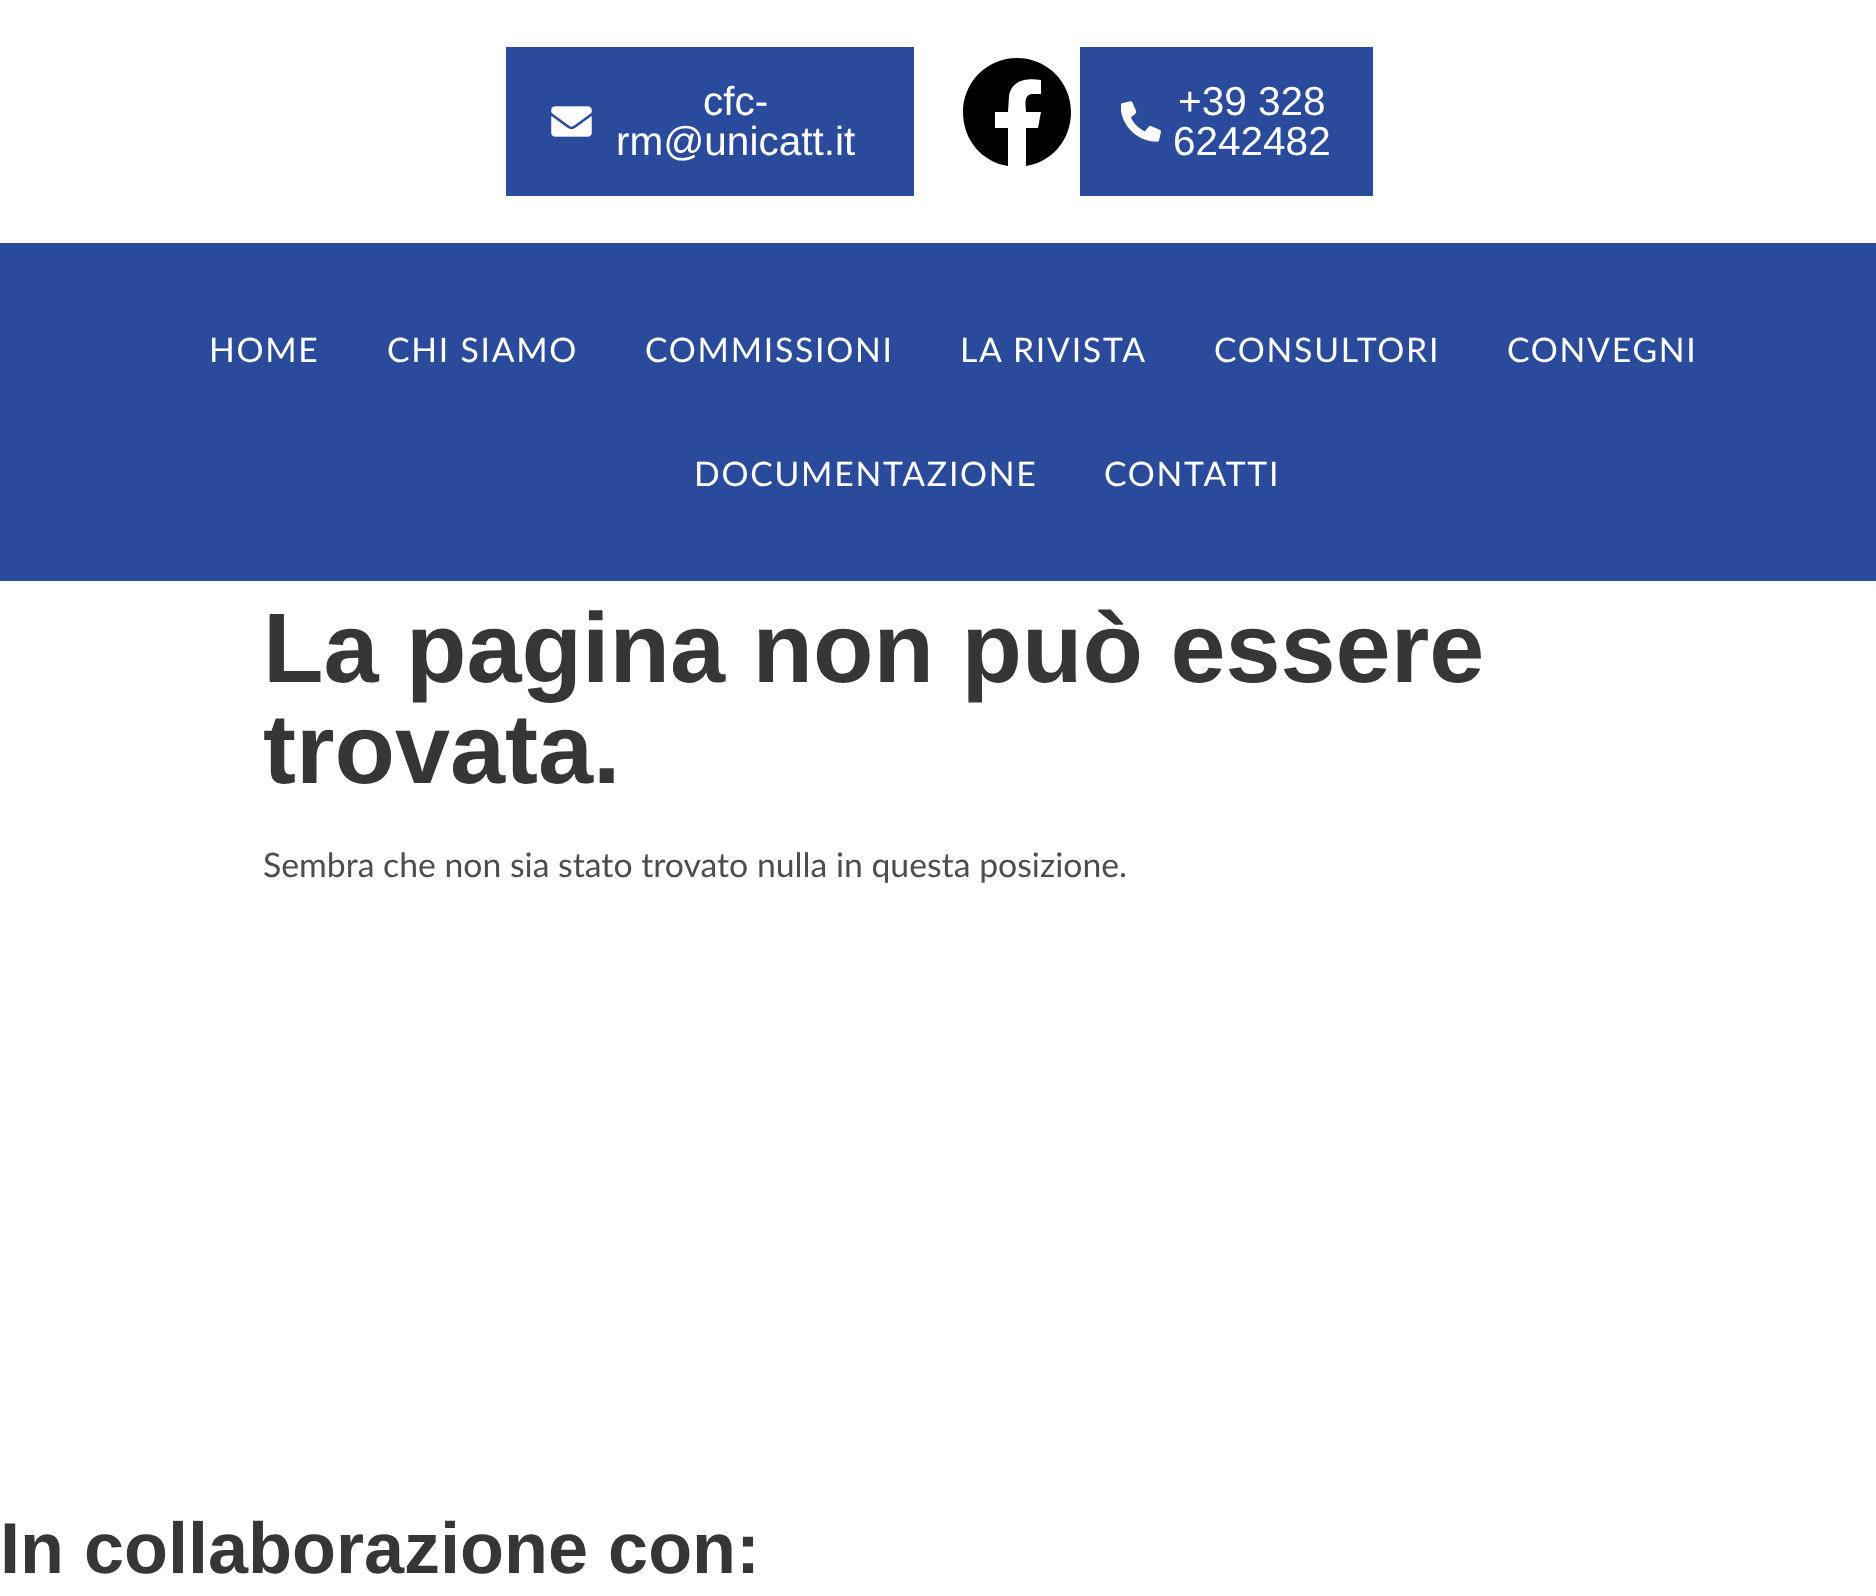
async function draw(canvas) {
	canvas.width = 1876;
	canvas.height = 1596;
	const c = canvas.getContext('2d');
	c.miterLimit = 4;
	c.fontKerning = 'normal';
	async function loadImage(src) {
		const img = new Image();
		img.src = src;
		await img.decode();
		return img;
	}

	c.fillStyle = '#fff';
	c.fillRect(0, 0, 1876, 1596);
	c.fillStyle = '#2a4b9b';
	c.fillRect(506, 47, 408, 149);
	c.drawImage(await loadImage('img1.png'), 551, 106, 41, 31);
	c.font = '40.5px Liberation Sans';
	c.fillStyle = '#fff';
	c.fillText('cfc-', 703, 115);
	c.fillText('rm@unicatt.it', 616, 155);
	c.fillStyle = '#000';
	c.beginPath();
	c.moveTo(1071, 112);
	c.bezierCurveTo(1071, 82, 1047, 58, 1017, 58);
	c.bezierCurveTo(987, 58, 963, 82, 963, 112);
	c.bezierCurveTo(963, 140, 982, 162, 1008, 166);
	c.lineTo(1008, 128);
	c.lineTo(995, 128);
	c.lineTo(995, 112);
	c.lineTo(1008, 112);
	c.lineTo(1009, 96);
	c.bezierCurveTo(1012, 79, 1028, 78, 1041, 80);
	c.lineTo(1041, 94);
	c.lineTo(1032, 94);
	c.bezierCurveTo(1023, 95, 1026, 106, 1026, 112);
	c.lineTo(1041, 112);
	c.lineTo(1038, 128);
	c.lineTo(1026, 128);
	c.lineTo(1026, 166);
	c.bezierCurveTo(1052, 162, 1071, 140, 1071, 112);
	c.closePath();
	c.fill();
	c.fillStyle = '#2a4b9b';
	c.fillRect(1080, 47, 293, 149);
	c.drawImage(await loadImage('img2.png'), 1121, 101, 40, 41);
	c.fillStyle = '#fff';
	c.fillText('+39 328', 1178, 115);
	c.fillText('6242482', 1173, 155);
	c.fillStyle = '#2a4b9b';
	c.fillRect(0, 243, 1876, 338);
	c.letterSpacing = '1.75px';
	c.font = '33.75px Lato';
	c.fillStyle = '#fff';
	for (const [text, x, y] of [
		['HOME', 209, 362],
		['CHI SIAMO', 387, 362],
		['COMMISSIONI', 645, 362],
		['LA RIVISTA', 960, 362],
		['CONSULTORI', 1214, 362],
		['CONVEGNI', 1507, 362],
		['DOCUMENTAZIONE', 694, 486],
		['CONTATTI', 1104, 486],
	]) {
		c.fillText(text, x, y);
	}
	c.letterSpacing = '0px';
	c.font = 'bold 99px Liberation Sans';
	c.fillStyle = '#363636';
	c.fillText('La pagina non può essere', 263, 682);
	c.fillText('trovata.', 263, 783);
	c.font = '33.75px Lato';
	c.fillStyle = '#4d4d4d';
	c.fillText('Sembra che non sia stato trovato nulla in questa posizione.', 263, 877);
	c.font = 'bold 72px Liberation Sans';
	c.fillStyle = '#363636';
	c.fillText('In collaborazione con:', 0, 1573);
}

draw(document.querySelector('canvas'));
